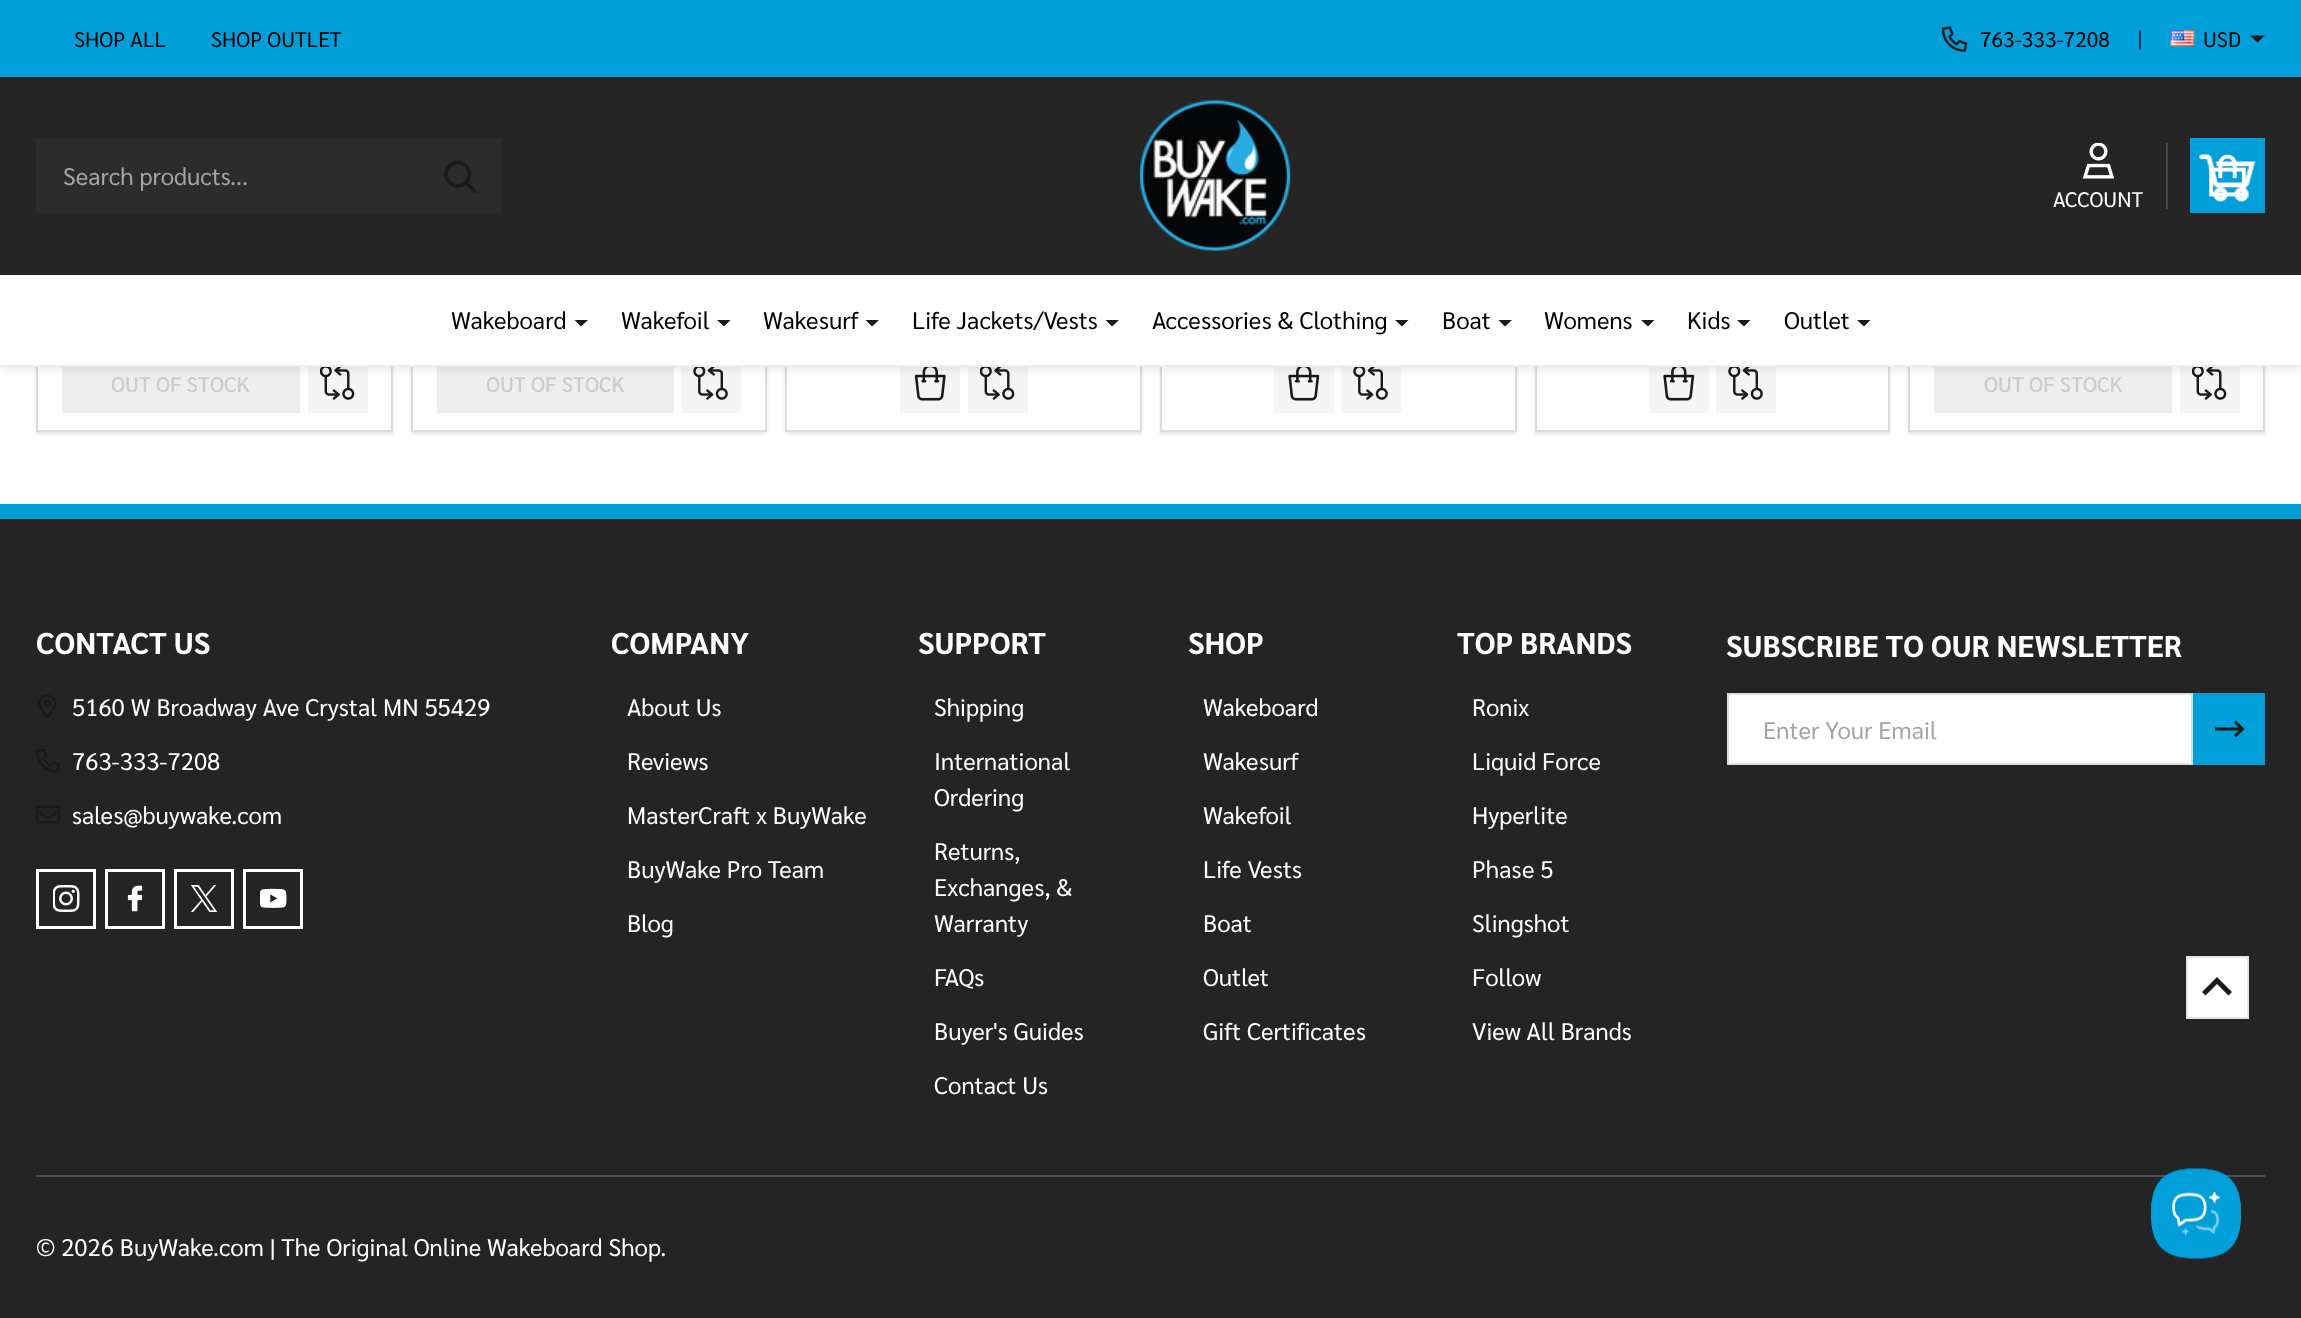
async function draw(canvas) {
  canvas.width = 2301;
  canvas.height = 1318;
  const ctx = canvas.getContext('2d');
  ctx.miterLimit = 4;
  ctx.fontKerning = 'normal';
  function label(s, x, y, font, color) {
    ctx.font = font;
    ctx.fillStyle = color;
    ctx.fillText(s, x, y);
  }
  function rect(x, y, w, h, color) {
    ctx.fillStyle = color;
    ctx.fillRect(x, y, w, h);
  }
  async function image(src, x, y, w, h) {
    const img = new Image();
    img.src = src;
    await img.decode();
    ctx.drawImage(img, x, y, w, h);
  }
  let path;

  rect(0, 0, 2301, 1318, '#fff');
  ctx.save();
  path = new Path2D('M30 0H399V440H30ZM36-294H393V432H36Z');
  ctx.clip(path, 'evenodd');
  ctx.fillStyle = '#0000001a';
  ctx.filter = 'blur(1.5px)';
  ctx.beginPath();
  ctx.rect(36, -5, 357, 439);
  ctx.fill();
  ctx.filter = 'none';
  ctx.restore();
  ctx.strokeStyle = '#ddd';
  ctx.lineWidth = 2;
  ctx.strokeRect(37, -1, 355, 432);
  rect(62, 367, 238, 46, '#eee');
  rect(308, 367, 60, 46, '#f5f5f5');
  await image('assets/img8.png', 320, 367, 35, 33);
  ctx.fillStyle = '#0000001a';
  ctx.filter = 'blur(1.5px)';
  ctx.beginPath();
  ctx.rect(411, -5, 356, 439);
  ctx.fill();
  ctx.filter = 'none';
  rect(413, 367, 352, 63, '#fff');
  ctx.strokeRect(412, -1, 354, 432);
  rect(437, 367, 237, 46, '#eee');
  rect(681, 367, 60, 46, '#f5f5f5');
  await image('assets/img9.png', 693, 367, 35, 33);
  ctx.fillStyle = '#0000001a';
  ctx.filter = 'blur(1.5px)';
  ctx.beginPath();
  ctx.rect(785, -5, 357, 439);
  ctx.fill();
  ctx.filter = 'none';
  rect(787, 367, 353, 63, '#fff');
  ctx.strokeRect(786, -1, 355, 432);
  rect(900, 367, 60, 46, '#f5f5f5');
  await image('assets/img10.png', 914, 367, 32, 34);
  rect(968, 367, 60, 46, '#f5f5f5');
  await image('assets/img8.png', 980, 367, 35, 33);
  ctx.fillStyle = '#0000001a';
  ctx.filter = 'blur(1.5px)';
  ctx.beginPath();
  ctx.rect(1160, -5, 357, 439);
  ctx.fill();
  ctx.filter = 'none';
  rect(1162, 367, 353, 63, '#fff');
  ctx.strokeRect(1161, -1, 355, 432);
  rect(1274, 367, 60, 46, '#f5f5f5');
  await image('assets/img11.png', 1288, 367, 32, 34);
  rect(1341, 367, 60, 46, '#f5f5f5');
  await image('assets/img9.png', 1353, 367, 35, 33);
  ctx.save();
  path = new Path2D('M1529 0H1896V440H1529ZM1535-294H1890V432H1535Z');
  ctx.clip(path, 'evenodd');
  ctx.fillStyle = '#0000001a';
  ctx.filter = 'blur(1.5px)';
  ctx.beginPath();
  ctx.rect(1535, -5, 355, 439);
  ctx.fill();
  ctx.filter = 'none';
  ctx.restore();
  ctx.strokeRect(1536, -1, 353, 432);
  rect(1649, 367, 60, 46, '#f5f5f5');
  await image('assets/img11.png', 1663, 367, 32, 34);
  rect(1716, 367, 60, 46, '#f5f5f5');
  await image('assets/img9.png', 1728, 367, 35, 33);
  ctx.save();
  path = new Path2D('M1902 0H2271V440H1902ZM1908-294H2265V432H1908Z');
  ctx.clip(path, 'evenodd');
  ctx.fillStyle = '#0000001a';
  ctx.filter = 'blur(1.5px)';
  ctx.beginPath();
  ctx.rect(1908, -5, 357, 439);
  ctx.fill();
  ctx.filter = 'none';
  ctx.restore();
  ctx.strokeRect(1909, -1, 355, 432);
  rect(1934, 367, 238, 46, '#eee');
  rect(2180, 367, 60, 46, '#f5f5f5');
  await image('assets/img8.png', 2192, 367, 35, 33);
  ctx.fillStyle = '#0000001a';
  ctx.filter = 'blur(4px)';
  ctx.beginPath();
  ctx.rect(0, 3, 2301, 366);
  ctx.fill();
  ctx.filter = 'none';
  rect(0, 77, 2301, 198, '#252525');
  rect(0, 0, 2301, 77, '#009fda');
  label('SHOP ALL', 74, 47, '21px Sarabun', '#000');
  label('SHOP OUTLET', 211, 47, '21px Sarabun', '#000');
  await image('assets/img1.png', 1941, 26, 27, 26);
  label('763-333-7208', 1980, 47, '21px Sarabun', '#000');
  rect(2139, 30, 2, 20, '#004057');
  await image('assets/img2.png', 2170, 30, 25, 17);
  label('USD', 2203, 47, '21px Sarabun', '#000');
  ctx.fillStyle = '#1a1a1a';
  path = new Path2D('M2250 35.5L2257.5 42.5L2265 35.5Z');
  ctx.fill(path);
  rect(36, 138, 465, 75, '#2c2c2c');
  label('Search products...', 63, 185, '24px Sarabun', '#a5a5a5');
  await image('assets/img3.png', 444, 161, 33, 32);
  await image('assets/img4.png', 1140, 100, 151, 151);
  rect(2166, 143, 2, 66, '#464646');
  await image('assets/img5.png', 2082, 143, 33, 36);
  label('ACCOUNT', 2053, 207, '21px Sarabun', '#fff');
  rect(2190, 138, 75, 75, '#009fda');
  await image('assets/img6.png', 2199, 154, 57, 48);
  await image('assets/img7.png', 2209, 154, 37, 43);
  rect(0, 275, 2301, 90, '#fff');
  rect(0, 365, 2301, 2, '#eee');
  label('Wakeboard', 451, 329, '24px Sarabun', '#000');
  ctx.fillStyle = '#1a1a1a';
  path = new Path2D('M574.5 320L581 326.5L588 320Z');
  ctx.fill(path);
  label('Wakefoil', 621, 329, '24px Sarabun', '#000');
  ctx.fillStyle = '#1a1a1a';
  path = new Path2D('M717 320L724 326.5L730.5 320Z');
  ctx.fill(path);
  label('Wakesurf', 763, 329, '24px Sarabun', '#000');
  ctx.fillStyle = '#1a1a1a';
  path = new Path2D('M865.5 320L872 326.5L879 320Z');
  ctx.fill(path);
  label('Life Jackets/Vests', 912, 329, '24px Sarabun', '#000');
  ctx.fillStyle = '#1a1a1a';
  path = new Path2D('M1105.5 320L1112 326.5L1119 320Z');
  ctx.fill(path);
  label('Accessories & Clothing', 1152, 329, '24px Sarabun', '#000');
  ctx.fillStyle = '#1a1a1a';
  path = new Path2D('M1395 320L1402 326.5L1408.5 320Z');
  ctx.fill(path);
  label('Boat', 1442, 329, '24px Sarabun', '#000');
  ctx.fillStyle = '#1a1a1a';
  path = new Path2D('M1498.5 320L1505 326.5L1512 320Z');
  ctx.fill(path);
  label('Womens', 1544, 329, '24px Sarabun', '#000');
  ctx.fillStyle = '#1a1a1a';
  path = new Path2D('M1641 320L1648 326.5L1654.5 320Z');
  ctx.fill(path);
  label('Kids', 1687, 329, '24px Sarabun', '#000');
  ctx.fillStyle = '#1a1a1a';
  path = new Path2D('M1737 320L1744 326.5L1750.5 320Z');
  ctx.fill(path);
  label('Outlet', 1784, 329, '24px Sarabun', '#000');
  ctx.fillStyle = '#1a1a1a';
  path = new Path2D('M1857 320L1864 326.5L1870.5 320Z');
  ctx.fill(path);
  label('OUT OF STOCK', 111, 392, '500 21px Sarabun', '#ccc');
  label('OUT OF STOCK', 486, 392, '500 21px Sarabun', '#ccc');
  label('OUT OF STOCK', 1984, 392, '500 21px Sarabun', '#ccc');
  rect(0, 519, 2301, 799, '#242424');
  rect(0, 504, 2301, 15, '#009fda');
  label('CONTACT US', 36, 654, 'bold 30px Sarabun', '#fff');
  await image('assets/img12.png', 38, 695, 18, 23);
  label('5160 W Broadway Ave Crystal MN 55429', 72, 716, '24px Sarabun', '#fff');
  await image('assets/img13.png', 36, 749, 24, 24);
  label('763-333-7208', 72, 770, '24px Sarabun', '#fff');
  await image('assets/img14.png', 36, 805, 24, 19);
  label('sales@buywake.com', 72, 824, '24px Sarabun', '#fff');
  ctx.strokeStyle = '#fff';
  ctx.lineWidth = 3;
  ctx.strokeRect(37.5, 870.5, 57, 57);
  await image('assets/img15.png', 53, 885, 27, 27);
  ctx.strokeRect(106.5, 870.5, 57, 57);
  await image('assets/img16.png', 127, 885, 16, 27);
  ctx.strokeRect(175.5, 870.5, 57, 57);
  await image('assets/img17.png', 191, 885, 27, 27);
  ctx.strokeRect(244.5, 870.5, 57, 57);
  await image('assets/img18.png', 260, 888, 27, 20);
  label('COMPANY', 611, 654, 'bold 30px Sarabun', '#fff');
  label('About Us', 627, 716, '24px Sarabun', '#fff');
  label('Reviews', 627, 770, '24px Sarabun', '#fff');
  label('MasterCraft x BuyWake', 627, 824, '24px Sarabun', '#fff');
  label('BuyWake Pro Team', 627, 878, '24px Sarabun', '#fff');
  label('Blog', 627, 932, '24px Sarabun', '#fff');
  label('SUPPORT', 918, 654, 'bold 30px Sarabun', '#fff');
  label('Shipping', 934, 716, '24px Sarabun', '#fff');
  label('International', 934, 770, '24px Sarabun', '#fff');
  label('Ordering', 934, 806, '24px Sarabun', '#fff');
  label('Returns,', 934, 860, '24px Sarabun', '#fff');
  label('Exchanges, &', 934, 896, '24px Sarabun', '#fff');
  label('Warranty', 934, 932, '24px Sarabun', '#fff');
  label('FAQs', 934, 986, '24px Sarabun', '#fff');
  label('Buyer\'s Guides', 934, 1040, '24px Sarabun', '#fff');
  label('Contact Us', 934, 1094, '24px Sarabun', '#fff');
  label('SHOP', 1188, 654, 'bold 30px Sarabun', '#fff');
  label('Wakeboard', 1203, 716, '24px Sarabun', '#fff');
  label('Wakesurf', 1203, 770, '24px Sarabun', '#fff');
  label('Wakefoil', 1203, 824, '24px Sarabun', '#fff');
  label('Life Vests', 1203, 878, '24px Sarabun', '#fff');
  label('Boat', 1203, 932, '24px Sarabun', '#fff');
  label('Outlet', 1203, 986, '24px Sarabun', '#fff');
  label('Gift Certificates', 1203, 1040, '24px Sarabun', '#fff');
  label('TOP BRANDS', 1457, 654, 'bold 30px Sarabun', '#fff');
  label('Ronix', 1472, 716, '24px Sarabun', '#fff');
  label('Liquid Force', 1472, 770, '24px Sarabun', '#fff');
  label('Hyperlite', 1472, 824, '24px Sarabun', '#fff');
  label('Phase 5', 1472, 878, '24px Sarabun', '#fff');
  label('Slingshot', 1472, 932, '24px Sarabun', '#fff');
  label('Follow', 1472, 986, '24px Sarabun', '#fff');
  label('View All Brands', 1472, 1040, '24px Sarabun', '#fff');
  label('SUBSCRIBE TO OUR NEWSLETTER', 1726, 657, 'bold 30px Sarabun', '#fff');
  ctx.beginPath();
  ctx.rect(1728, 694, 464, 70);
  ctx.fill();
  ctx.strokeStyle = '#ddd';
  ctx.lineWidth = 2;
  ctx.stroke();
  label('Enter Your Email', 1763, 739, '24px Sarabun', '#a5a5a5');
  rect(2193, 693, 72, 72, '#009fda');
  ctx.fillStyle = '#1a1a1a';
  path = new Path2D('M2215 730.5H2238.5L2234 735L2236 737.5L2244.5 729L2236 720.5L2234 722.5L2238.5 727.5H2215Z');
  ctx.fill(path);
  rect(36, 1175, 2229, 2, '#505050');
  label('© 2026 BuyWake.com | The Original Online Wakeboard Shop.', 36, 1256, '24px Sarabun', '#fff');
  ctx.beginPath();
  ctx.rect(2187, 957, 61, 61);
  ctx.fill();
  ctx.strokeStyle = '#e6e6e6';
  ctx.stroke();
  ctx.fillStyle = '#1a1a1a';
  path = new Path2D('M2205.5 995.5L2217 984L2228.5 995.5L2232 992L2217 977L2202 992Z');
  ctx.fill(path);
  await image('assets/img19.png', 2151, 1168, 90, 91);
}

draw(document.querySelector('canvas'));
